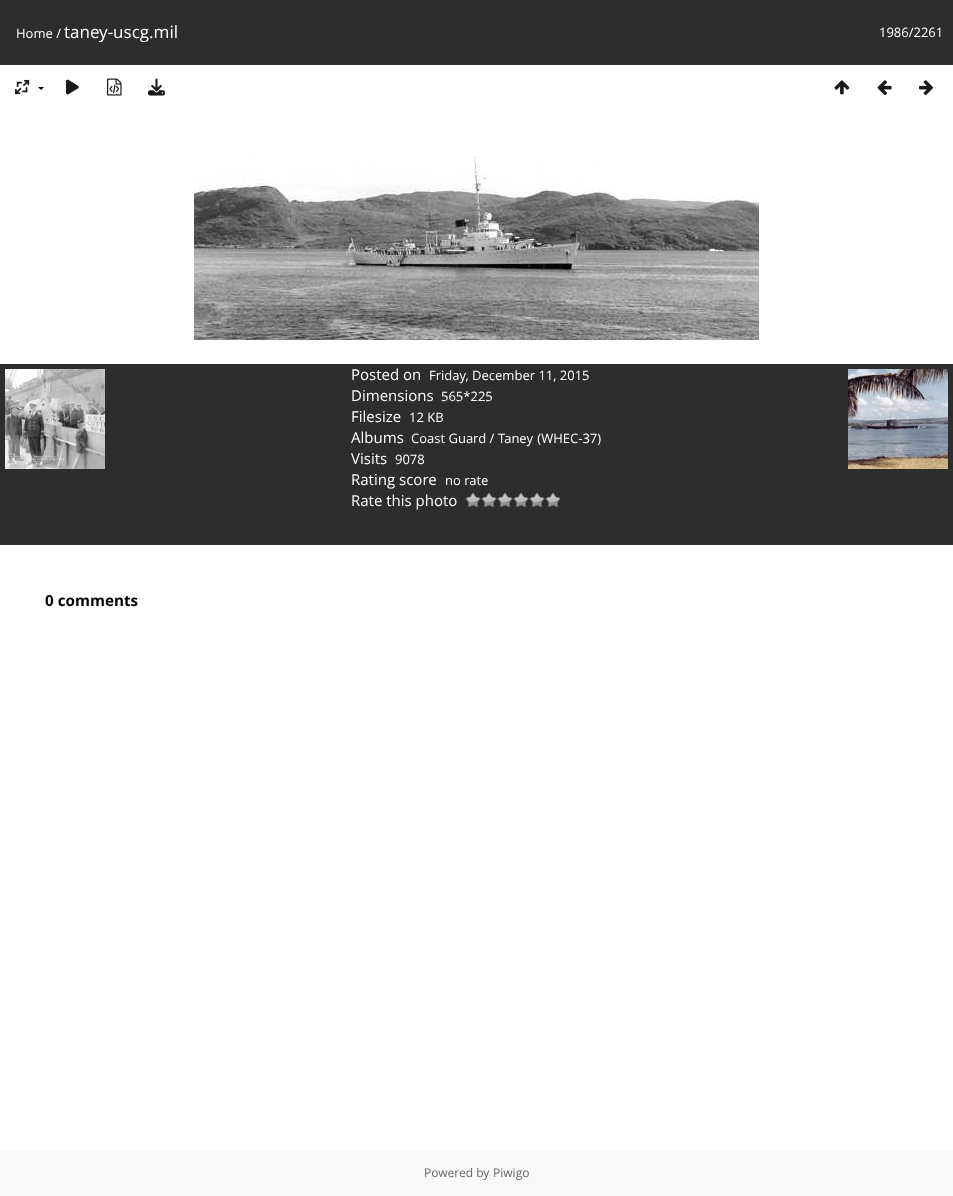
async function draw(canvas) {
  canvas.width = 953;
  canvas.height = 1196;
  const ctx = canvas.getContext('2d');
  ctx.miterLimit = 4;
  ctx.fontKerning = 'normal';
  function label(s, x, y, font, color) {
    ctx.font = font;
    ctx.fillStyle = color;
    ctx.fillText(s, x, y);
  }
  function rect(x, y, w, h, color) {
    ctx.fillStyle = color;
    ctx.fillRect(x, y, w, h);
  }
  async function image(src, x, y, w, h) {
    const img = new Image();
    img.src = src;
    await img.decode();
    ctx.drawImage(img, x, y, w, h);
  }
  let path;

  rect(0, 0, 953, 1196, '#fff');
  rect(0, 0, 953, 65, '#2d2d2d');
  label('Home /', 16, 38, '13px Open Sans', '#fff');
  label('taney-uscg.mil', 64, 38, '17px Open Sans', '#fff');
  label('1986/2261', 879, 37, '13px Open Sans', '#fff');
  await image('assets/img1.png', 15, 79, 15, 16);
  ctx.fillStyle = '#000';
  path = new Path2D('M38 87H44L41 90Z');
  ctx.fill(path);
  await image('assets/img2.png', 66, 79, 13, 16);
  await image('assets/img3.png', 107, 78, 15, 18);
  await image('assets/img4.png', 148, 78, 17, 18);
  await image('assets/img5.png', 834, 80, 16, 15);
  await image('assets/img6.png', 877, 80, 15, 15);
  await image('assets/img7.png', 919, 80, 14, 15);
  await image('assets/img8.png', 194, 156, 565, 184);
  rect(0, 364, 953, 181, '#2d2d2d');
  label('Posted on', 351, 380, '15px Open Sans', '#fff');
  label('Friday, December 11, 2015', 429, 380, '13px Open Sans', '#fff');
  label('Dimensions', 351, 401, '15px Open Sans', '#fff');
  label('565*225', 441, 401, '13px Open Sans', '#fff');
  label('Filesize', 351, 422, '15px Open Sans', '#fff');
  label('12 KB', 409, 422, '13px Open Sans', '#fff');
  label('Albums', 351, 443, '15px Open Sans', '#fff');
  label('Coast Guard /', 411, 443, '13px Open Sans', '#fff');
  ctx.wordSpacing = '1px';
  label('Taney (WHEC-37)', 498, 443, '13px Open Sans', '#fff');
  ctx.wordSpacing = '0px';
  label('Visits', 351, 464, '15px Open Sans', '#fff');
  label('9078', 395, 464, '13px Open Sans', '#fff');
  label('Rating score', 351, 485, '15px Open Sans', '#fff');
  label('no rate', 445, 485, '13px Open Sans', '#fff');
  label('Rate this photo', 351, 506, '15px Open Sans', '#fff');
  await image('assets/img9.png', 465, 493, 16, 14);
  await image('assets/img9.png', 481, 493, 16, 14);
  await image('assets/img9.png', 497, 493, 16, 14);
  await image('assets/img9.png', 513, 493, 16, 14);
  await image('assets/img9.png', 529, 493, 16, 14);
  await image('assets/img9.png', 545, 493, 16, 14);
  await image('assets/img10.png', 5, 369, 100, 100);
  await image('assets/img11.png', 848, 369, 100, 100);
  label('0 comments', 45, 606, 'bold 15.25px Open Sans', '#000');
  rect(0, 1149, 953, 47, '#f9f9f9');
  label('Powered by', 424, 1177, '12px Open Sans', '#666');
  label('Piwigo', 493, 1177, '12px Open Sans', '#666');
}

draw(document.querySelector('canvas'));
